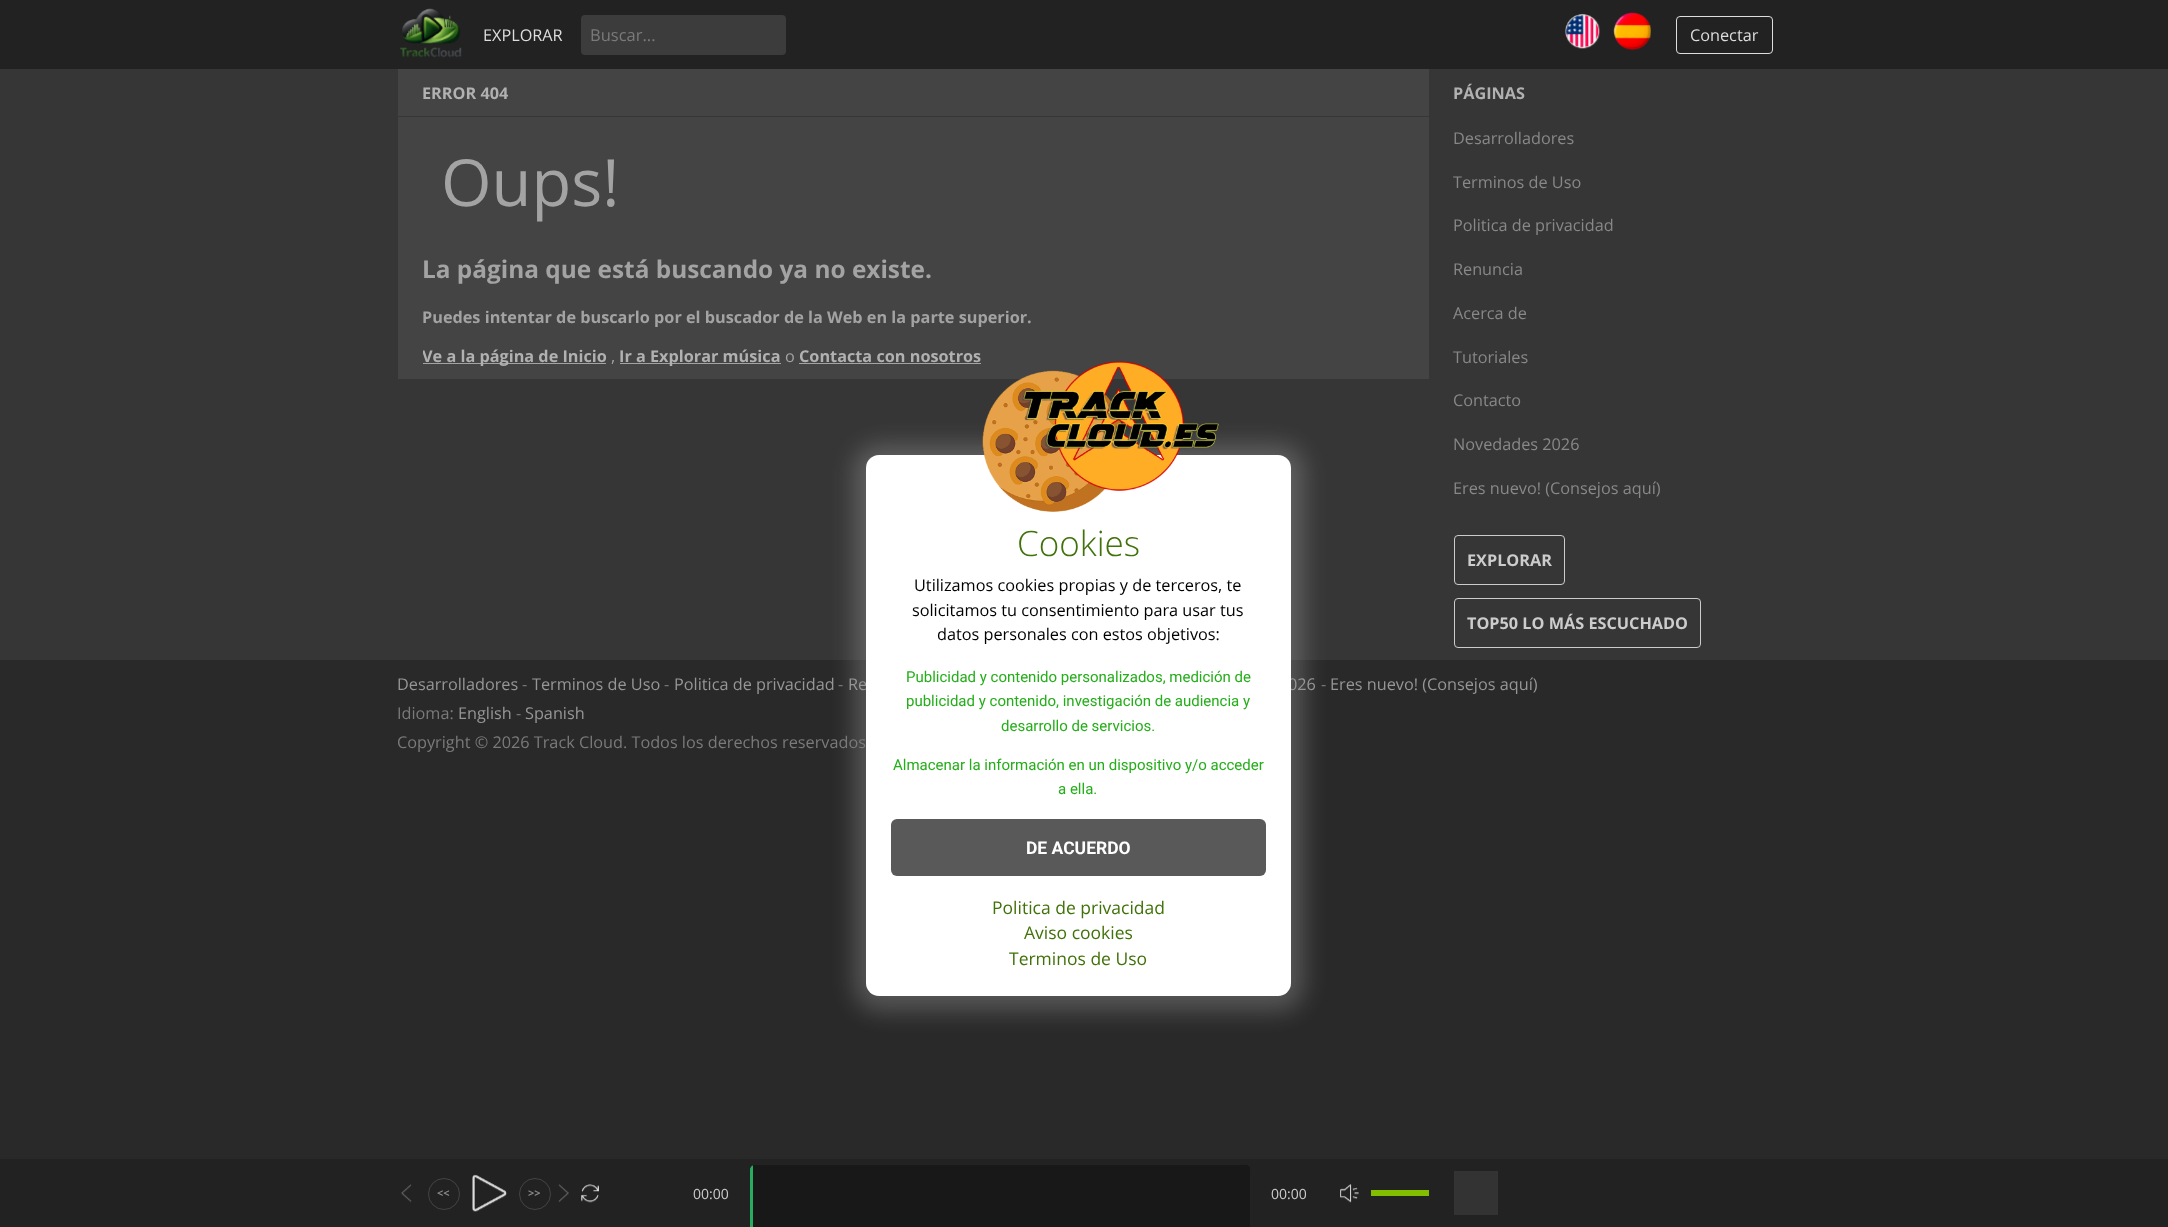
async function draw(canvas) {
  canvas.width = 2168;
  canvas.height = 1227;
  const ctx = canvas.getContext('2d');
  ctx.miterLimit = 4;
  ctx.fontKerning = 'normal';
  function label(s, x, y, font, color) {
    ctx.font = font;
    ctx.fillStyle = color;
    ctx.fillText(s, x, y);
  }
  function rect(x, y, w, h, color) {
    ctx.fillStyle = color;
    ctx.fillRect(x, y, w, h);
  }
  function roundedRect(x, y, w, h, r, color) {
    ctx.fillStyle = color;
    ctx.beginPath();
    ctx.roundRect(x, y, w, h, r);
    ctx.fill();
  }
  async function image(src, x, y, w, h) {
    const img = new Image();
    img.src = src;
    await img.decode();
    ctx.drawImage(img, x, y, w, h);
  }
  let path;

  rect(0, 0, 2168, 1227, '#292929');
  rect(0, 0, 2168, 69, '#222');
  await image('assets/img1.png', 400, 8, 62, 50);
  label('EXPLORAR', 483, 41, '16.25px Open Sans', '#ddd');
  roundedRect(581, 15, 205, 40, 4, '#3c3c3c');
  label('Buscar...', 590, 41, '16.5px Open Sans', '#7a7a7a');
  await image('assets/img2.png', 1565, 13, 35, 36);
  await image('assets/img3.png', 1613, 12, 38, 39);
  ctx.beginPath();
  ctx.roundRect(1676.5, 16.5, 96, 37, 3.5);
  ctx.strokeStyle = '#ddd';
  ctx.stroke();
  label('Conectar', 1690, 41, '16.25px Open Sans', '#ddd');
  rect(0, 69, 2168, 591, '#363636');
  rect(398, 69, 1031, 310, '#444');
  rect(398, 116, 1031, 1, '#363636');
  label('ERROR 404', 422, 99, 'bold 16.25px Open Sans', '#b1b1b1');
  label('Oups!', 441, 206, '65px Open Sans', '#a3a3a3');
  label('La página que está buscando ya no existe.', 422, 278, 'bold 24.4px Open Sans', '#a3a3a3');
  label('Puedes intentar de buscarlo por el buscador de la Web en la parte superior.', 422, 323, 'bold 16.25px Open Sans', '#a3a3a3');
  rect(423, 363, 183, 1, '#a3a3a3');
  ctx.save();
  ctx.beginPath();
  ctx.rect(423, 130, 981, 236);
  ctx.clip();
  label('Ve a la página de Inicio', 422, 362, 'bold 16.25px Open Sans', '#b1b1b1');
  ctx.restore();
  label(',', 611, 362, '16.25px Open Sans', '#a3a3a3');
  rect(620, 363, 161, 1, '#a3a3a3');
  label('Ir a Explorar música', 619, 362, 'bold 16.25px Open Sans', '#b1b1b1');
  label('o', 785, 362, '16.25px Open Sans', '#a3a3a3');
  label('Contacta con nosotros', 799, 362, 'bold 16.25px Open Sans', '#b1b1b1');
  rect(799, 363, 182, 1, '#a3a3a3');
  label('PÁGINAS', 1453, 99, 'bold 16.25px Open Sans', '#b1b1b1');
  label('Desarrolladores', 1453, 144, '16.25px Open Sans', '#888');
  label('Terminos de Uso', 1453, 188, '16.25px Open Sans', '#888');
  label('Politica de privacidad', 1453, 231, '16.25px Open Sans', '#888');
  label('Renuncia', 1453, 275, '16.25px Open Sans', '#888');
  label('Acerca de', 1453, 319, '16.25px Open Sans', '#888');
  label('Tutoriales', 1453, 363, '16.25px Open Sans', '#888');
  label('Contacto', 1453, 406, '16.25px Open Sans', '#888');
  label('Novedades 2026', 1453, 450, '16.25px Open Sans', '#888');
  label('Eres nuevo! (Consejos aquí)', 1453, 494, '16.25px Open Sans', '#888');
  ctx.beginPath();
  ctx.roundRect(1454.5, 535.5, 110, 49, 3.5);
  ctx.strokeStyle = '#ccc';
  ctx.stroke();
  label('EXPLORAR', 1467, 566, 'bold 16.25px Open Sans', '#ccc');
  ctx.beginPath();
  ctx.roundRect(1454.5, 598.5, 246, 49, 3.5);
  ctx.stroke();
  label('TOP50 LO MÁS ESCUCHADO', 1467, 629, 'bold 16.25px Open Sans', '#ccc');
  ctx.fillStyle = '#dedede40';
  ctx.filter = 'blur(12.5px)';
  ctx.beginPath();
  ctx.roundRect(854, 445, 450, 566, 25);
  ctx.fill();
  ctx.filter = 'none';
  label('Re', 848, 690, '16.25px Open Sans', '#969696');
  label('026', 1288, 690, '16.25px Open Sans', '#969696');
  roundedRect(866, 455, 425, 541, 13, '#fff');
  await image('assets/img4.png', 982, 361, 237, 151);
  label('Cookies', 1017, 556, '300 35px Open Sans', '#407209');
  label('Utilizamos cookies propias y de terceros, te', 914, 591, '16.25px Open Sans', '#000');
  label('solicitamos tu consentimiento para usar tus', 912, 616, '16.25px Open Sans', '#000');
  label('datos personales con estos objetivos:', 937, 640, '16.25px Open Sans', '#000');
  label('Publicidad y contenido personalizados, medición de', 906, 682, '15px Roboto', '#24ae19');
  label('publicidad y contenido, investigación de audiencia y', 906, 706, '15px Roboto', '#24ae19');
  label('desarrollo de servicios.', 1001, 731, '15px Roboto', '#24ae19');
  label('Almacenar la información en un dispositivo y/o acceder', 893, 770, '15px Roboto', '#24ae19');
  label('a ella.', 1058, 794, '15px Roboto', '#24ae19');
  roundedRect(891, 819, 375, 57, 6, '#595959');
  label('DE ACUERDO', 1026, 854, 'bold 17.5px Roboto', '#fff');
  label('Politica de privacidad', 992, 914, '17.5px Open Sans', '#407209');
  label('Aviso cookies', 1024, 939, '17.5px Open Sans', '#407209');
  label('Terminos de Uso', 1009, 965, '17.5px Open Sans', '#407209');
  label('Desarrolladores', 397, 690, '16.25px Open Sans', '#969696');
  label('-', 522, 690, '16.25px Open Sans', '#7a7a7a');
  label('Terminos de Uso', 532, 690, '16.25px Open Sans', '#969696');
  label('-', 664, 690, '16.25px Open Sans', '#7a7a7a');
  label('Politica de privacidad', 674, 690, '16.25px Open Sans', '#969696');
  label('-', 838, 690, '16.25px Open Sans', '#7a7a7a');
  label('-', 1321, 690, '16.25px Open Sans', '#7a7a7a');
  label('Eres nuevo! (Consejos aquí)', 1330, 690, '16.25px Open Sans', '#969696');
  label('Idioma:', 397, 719, '16.25px Open Sans', '#7a7a7a');
  label('English', 458, 719, '16.25px Open Sans', '#969696');
  label('-', 516, 719, '16.25px Open Sans', '#7a7a7a');
  label('Spanish', 525, 719, '16.25px Open Sans', '#969696');
  label('Copyright © 2026 Track Cloud. Todos los derechos reservados', 397, 748, '16.25px Open Sans', '#7a7a7a');
  rect(0, 1159, 2168, 68, '#222');
  await image('assets/img5.png', 401, 1184, 11, 19);
  ctx.beginPath();
  ctx.arc(444, 1194, 15.5, 0, 2 * Math.PI);
  ctx.strokeStyle = '#444';
  ctx.stroke();
  label('<<', 437, 1197, 'bold 11px Open Sans', '#888');
  await image('assets/img6.png', 472, 1174, 35, 38);
  ctx.beginPath();
  ctx.arc(535, 1194, 15.5, 0, 2 * Math.PI);
  ctx.stroke();
  label('>>', 528, 1197, 'bold 11px Open Sans', '#888');
  await image('assets/img7.png', 558, 1184, 11, 19);
  await image('assets/img8.png', 581, 1184, 18, 19);
  label('00:00', 693, 1199, '14px Open Sans', '#ccc');
  ctx.fillStyle = '#000';
  path = new Path2D('M755 1165H1245C1248 1165 1250 1167 1250 1170V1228H750V1170C750 1167 752 1165 755 1165Z');
  ctx.fill(path);
  ctx.fillStyle = '#333333cc';
  path = new Path2D('M755 1165H1245C1248 1165 1250 1167 1250 1170V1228H750V1170C750 1167 752 1165 755 1165Z');
  ctx.fill(path);
  ctx.fillStyle = '#00000066';
  path = new Path2D('M755 1165H1245C1248 1165 1250 1167 1250 1170V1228H750V1170C750 1167 752 1165 755 1165Z');
  ctx.fill(path);
  ctx.save();
  ctx.beginPath();
  ctx.roundRect(750, 1165, 500, 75, 5);
  ctx.clip();
  rect(750, 1165, 3, 62, '#2aa85f');
  rect(750, 1165, 3, 62, '#27ae60cc');
  ctx.restore();
  label('00:00', 1271, 1199, '14px Open Sans', '#ccc');
  await image('assets/img9.png', 1340, 1184, 19, 19);
  rect(1371, 1190, 58, 6, '#84bd00');
  rect(1454, 1171, 44, 44, '#333');
}

draw(document.querySelector('canvas'));
